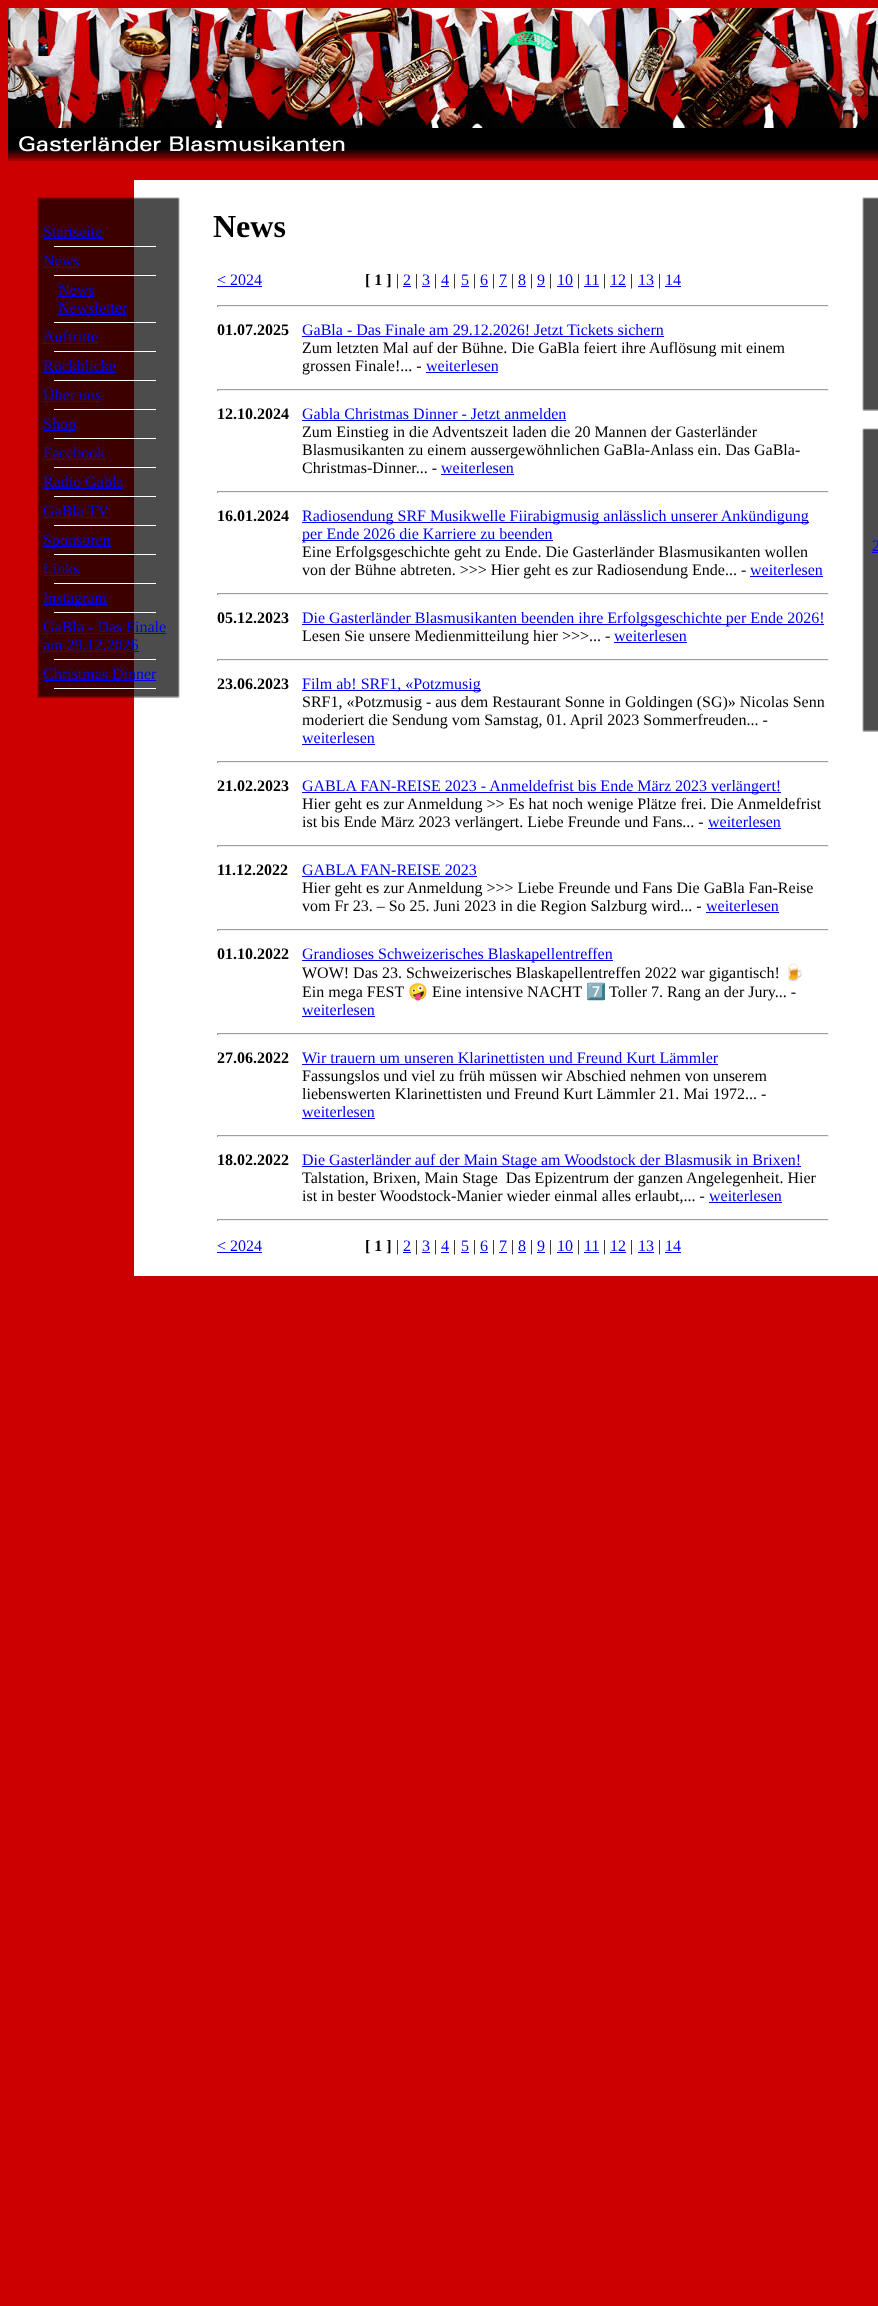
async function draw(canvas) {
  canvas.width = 878;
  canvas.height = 2306;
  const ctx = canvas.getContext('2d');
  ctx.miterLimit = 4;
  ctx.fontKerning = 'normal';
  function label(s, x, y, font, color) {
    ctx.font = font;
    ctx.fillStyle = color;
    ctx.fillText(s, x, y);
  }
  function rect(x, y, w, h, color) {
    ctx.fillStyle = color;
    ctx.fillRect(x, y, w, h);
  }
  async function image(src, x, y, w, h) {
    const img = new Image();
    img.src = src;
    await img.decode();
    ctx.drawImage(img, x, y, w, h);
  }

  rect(0, 0, 878, 2306, '#c00');
  await image('assets/img1.png', 8, 8, 870, 120);
  await image('assets/img2.png', 8, 128, 870, 33);
  await image('assets/img3.png', 19, 136, 326, 16);
  rect(134, 180, 744, 1096, '#fff');
  await image('assets/img4.png', 37, 197, 6, 26);
  await image('assets/img5.png', 134, 180, 40, 43);
  await image('assets/img6.png', 43, 180, 91, 43);
  await image('assets/img7.png', 174, 197, 6, 26);
  await image('assets/img8.png', 37, 223, 6, 18);
  await image('assets/img9.png', 43, 223, 131, 18);
  label('Startseite', 43, 237, '16px Liberation Serif', '#00e');
  rect(43, 238, 60, 1, '#00e');
  await image('assets/img10.png', 174, 223, 6, 18);
  await image('assets/img11.png', 37, 241, 6, 11);
  await image('assets/img12.png', 43, 241, 131, 11);
  rect(54, 246, 102, 1, '#fff');
  await image('assets/img13.png', 174, 241, 6, 11);
  await image('assets/img8.png', 37, 252, 6, 18);
  await image('assets/img9.png', 43, 252, 131, 18);
  label('News', 43, 266, '16px Liberation Serif', '#00e');
  rect(43, 267, 36, 1, '#00e');
  await image('assets/img10.png', 174, 252, 6, 18);
  await image('assets/img11.png', 37, 270, 6, 11);
  await image('assets/img12.png', 43, 270, 131, 11);
  rect(54, 275, 102, 1, '#fff');
  await image('assets/img13.png', 174, 270, 6, 11);
  await image('assets/img14.png', 37, 281, 6, 36);
  await image('assets/img15.png', 43, 281, 131, 36);
  label('News', 58, 295, '16px Liberation Serif', '#00e');
  rect(58, 296, 36, 1, '#00e');
  label('Newsletter', 58, 313, '16px Liberation Serif', '#00e');
  rect(58, 314, 69, 1, '#00e');
  await image('assets/img16.png', 174, 281, 6, 36);
  await image('assets/img11.png', 37, 317, 6, 11);
  await image('assets/img12.png', 43, 317, 131, 11);
  rect(54, 322, 102, 1, '#fff');
  await image('assets/img13.png', 174, 317, 6, 11);
  await image('assets/img8.png', 37, 328, 6, 18);
  await image('assets/img9.png', 43, 328, 131, 18);
  label('Auftritte', 43, 342, '16px Liberation Serif', '#00e');
  rect(43, 343, 55, 1, '#00e');
  await image('assets/img10.png', 174, 328, 6, 18);
  await image('assets/img11.png', 37, 346, 6, 11);
  await image('assets/img12.png', 43, 346, 131, 11);
  rect(54, 351, 102, 1, '#fff');
  await image('assets/img13.png', 174, 346, 6, 11);
  await image('assets/img8.png', 37, 357, 6, 18);
  await image('assets/img9.png', 43, 357, 131, 18);
  label('Rückblicke', 43, 371, '16px Liberation Serif', '#00e');
  rect(43, 372, 73, 1, '#00e');
  await image('assets/img10.png', 174, 357, 6, 18);
  await image('assets/img11.png', 37, 375, 6, 11);
  await image('assets/img12.png', 43, 375, 131, 11);
  rect(54, 380, 102, 1, '#fff');
  await image('assets/img13.png', 174, 375, 6, 11);
  await image('assets/img8.png', 37, 386, 6, 18);
  await image('assets/img9.png', 43, 386, 131, 18);
  label('Über uns', 43, 400, '16px Liberation Serif', '#00e');
  rect(43, 401, 58, 1, '#00e');
  await image('assets/img10.png', 174, 386, 6, 18);
  await image('assets/img11.png', 37, 404, 6, 11);
  await image('assets/img12.png', 43, 404, 131, 11);
  rect(54, 409, 102, 1, '#fff');
  await image('assets/img13.png', 174, 404, 6, 11);
  await image('assets/img8.png', 37, 415, 6, 18);
  await image('assets/img9.png', 43, 415, 131, 18);
  rect(43, 430, 33, 1, '#00e');
  label('Shop', 43, 429, '16px Liberation Serif', '#00e');
  await image('assets/img10.png', 174, 415, 6, 18);
  await image('assets/img11.png', 37, 433, 6, 11);
  await image('assets/img12.png', 43, 433, 131, 11);
  rect(54, 438, 102, 1, '#fff');
  await image('assets/img13.png', 174, 433, 6, 11);
  await image('assets/img8.png', 37, 444, 6, 18);
  await image('assets/img9.png', 43, 444, 131, 18);
  label('Facebook', 43, 458, '16px Liberation Serif', '#00e');
  rect(43, 459, 62, 1, '#00e');
  await image('assets/img10.png', 174, 444, 6, 18);
  await image('assets/img11.png', 37, 462, 6, 11);
  await image('assets/img12.png', 43, 462, 131, 11);
  rect(54, 467, 102, 1, '#fff');
  await image('assets/img13.png', 174, 462, 6, 11);
  await image('assets/img8.png', 37, 473, 6, 18);
  await image('assets/img9.png', 43, 473, 131, 18);
  label('Radio Gabla', 43, 487, '16px Liberation Serif', '#00e');
  rect(43, 488, 80, 1, '#00e');
  await image('assets/img10.png', 174, 473, 6, 18);
  await image('assets/img11.png', 37, 491, 6, 11);
  await image('assets/img12.png', 43, 491, 131, 11);
  rect(54, 496, 102, 1, '#fff');
  await image('assets/img13.png', 174, 491, 6, 11);
  await image('assets/img8.png', 37, 502, 6, 18);
  await image('assets/img9.png', 43, 502, 131, 18);
  label('GaBla TV', 43, 516, '16px Liberation Serif', '#00e');
  rect(43, 517, 66, 1, '#00e');
  await image('assets/img10.png', 174, 502, 6, 18);
  await image('assets/img11.png', 37, 520, 6, 11);
  await image('assets/img12.png', 43, 520, 131, 11);
  rect(54, 525, 102, 1, '#fff');
  await image('assets/img13.png', 174, 520, 6, 11);
  await image('assets/img8.png', 37, 531, 6, 18);
  await image('assets/img9.png', 43, 531, 131, 18);
  rect(43, 546, 68, 1, '#00e');
  label('Sponsoren', 43, 545, '16px Liberation Serif', '#00e');
  await image('assets/img10.png', 174, 531, 6, 18);
  await image('assets/img11.png', 37, 549, 6, 11);
  await image('assets/img12.png', 43, 549, 131, 11);
  rect(54, 554, 102, 1, '#fff');
  await image('assets/img13.png', 174, 549, 6, 11);
  await image('assets/img8.png', 37, 560, 6, 18);
  await image('assets/img9.png', 43, 560, 131, 18);
  label('Links', 43, 574, '16px Liberation Serif', '#00e');
  rect(43, 575, 36, 1, '#00e');
  await image('assets/img10.png', 174, 560, 6, 18);
  await image('assets/img11.png', 37, 578, 6, 11);
  await image('assets/img12.png', 43, 578, 131, 11);
  rect(54, 583, 102, 1, '#fff');
  await image('assets/img13.png', 174, 578, 6, 11);
  await image('assets/img8.png', 37, 589, 6, 18);
  await image('assets/img9.png', 43, 589, 131, 18);
  rect(43, 604, 64, 1, '#00e');
  label('Instagram', 43, 603, '16px Liberation Serif', '#00e');
  await image('assets/img10.png', 174, 589, 6, 18);
  await image('assets/img11.png', 37, 607, 6, 11);
  await image('assets/img12.png', 43, 607, 131, 11);
  rect(54, 612, 102, 1, '#fff');
  await image('assets/img13.png', 174, 607, 6, 11);
  await image('assets/img14.png', 37, 618, 6, 36);
  await image('assets/img15.png', 43, 618, 131, 36);
  label('GaBla - Das Finale', 43, 632, '16px Liberation Serif', '#00e');
  rect(43, 633, 123, 1, '#00e');
  label('am 29.12.2026', 43, 650, '16px Liberation Serif', '#00e');
  rect(43, 651, 96, 1, '#00e');
  await image('assets/img16.png', 174, 618, 6, 36);
  await image('assets/img11.png', 37, 654, 6, 11);
  await image('assets/img12.png', 43, 654, 131, 11);
  rect(54, 659, 102, 1, '#fff');
  await image('assets/img13.png', 174, 654, 6, 11);
  await image('assets/img8.png', 37, 665, 6, 18);
  await image('assets/img9.png', 43, 665, 131, 18);
  label('Christmas Dinner', 43, 679, '16px Liberation Serif', '#00e');
  rect(43, 680, 113, 1, '#00e');
  await image('assets/img10.png', 174, 665, 6, 18);
  await image('assets/img11.png', 37, 683, 6, 11);
  await image('assets/img12.png', 43, 683, 131, 11);
  rect(54, 688, 102, 1, '#fff');
  await image('assets/img13.png', 174, 683, 6, 11);
  await image('assets/img17.png', 37, 694, 6, 4);
  await image('assets/img18.png', 134, 694, 40, 4);
  await image('assets/img19.png', 43, 694, 91, 4);
  await image('assets/img20.png', 174, 694, 6, 4);
  label('News', 213, 237, 'bold 32px Liberation Serif', '#000');
  label('< 2024', 217, 285, '16px Liberation Serif', '#00e');
  rect(217, 286, 45, 1, '#00e');
  label('[ 1 ]', 365, 285, 'bold 16px Liberation Serif', '#000');
  label('|', 396, 285, '16px Liberation Serif', '#000');
  label('2', 403, 285, '16px Liberation Serif', '#00e');
  rect(403, 286, 8, 1, '#00e');
  label('|', 415, 285, '16px Liberation Serif', '#000');
  label('3', 422, 285, '16px Liberation Serif', '#00e');
  rect(422, 286, 8, 1, '#00e');
  label('|', 434, 285, '16px Liberation Serif', '#000');
  label('4', 441, 285, '16px Liberation Serif', '#00e');
  rect(441, 286, 8, 1, '#00e');
  label('|', 453, 285, '16px Liberation Serif', '#000');
  label('5', 461, 285, '16px Liberation Serif', '#00e');
  rect(461, 286, 8, 1, '#00e');
  label('|', 473, 285, '16px Liberation Serif', '#000');
  label('6', 480, 285, '16px Liberation Serif', '#00e');
  rect(480, 286, 8, 1, '#00e');
  label('|', 492, 285, '16px Liberation Serif', '#000');
  label('7', 499, 285, '16px Liberation Serif', '#00e');
  rect(499, 286, 8, 1, '#00e');
  label('|', 511, 285, '16px Liberation Serif', '#000');
  label('8', 518, 285, '16px Liberation Serif', '#00e');
  rect(518, 286, 8, 1, '#00e');
  label('|', 530, 285, '16px Liberation Serif', '#000');
  label('9', 537, 285, '16px Liberation Serif', '#00e');
  rect(537, 286, 8, 1, '#00e');
  label('|', 549, 285, '16px Liberation Serif', '#000');
  label('10', 557, 285, '16px Liberation Serif', '#00e');
  rect(557, 286, 16, 1, '#00e');
  label('|', 577, 285, '16px Liberation Serif', '#000');
  label('11', 584, 285, '16px Liberation Serif', '#00e');
  rect(584, 286, 15, 1, '#00e');
  label('|', 603, 285, '16px Liberation Serif', '#000');
  label('12', 610, 285, '16px Liberation Serif', '#00e');
  rect(610, 286, 16, 1, '#00e');
  label('|', 630, 285, '16px Liberation Serif', '#000');
  label('13', 638, 285, '16px Liberation Serif', '#00e');
  rect(638, 286, 16, 1, '#00e');
  label('|', 658, 285, '16px Liberation Serif', '#000');
  label('14', 665, 285, '16px Liberation Serif', '#00e');
  rect(665, 286, 16, 1, '#00e');
  rect(217, 305, 612, 1, '#9f9f9f');
  rect(828, 305, 1, 2, '#eee');
  rect(217, 306, 612, 1, '#eee');
  rect(217, 305, 1, 2, '#9f9f9f');
  label('01.07.2025', 217, 335, 'bold 16px Liberation Serif', '#000');
  label('GaBla - Das Finale am 29.12.2026! Jetzt Tickets sichern', 302, 335, '16px Liberation Serif', '#00e');
  rect(302, 336, 362, 1, '#00e');
  label('Zum letzten Mal auf der Bühne. Die GaBla feiert ihre Auflösung mit einem', 302, 353, '16px Liberation Serif', '#000');
  label('grossen Finale!... -', 302, 371, '16px Liberation Serif', '#000');
  label('weiterlesen', 426, 371, '16px Liberation Serif', '#00e');
  rect(426, 372, 72, 1, '#00e');
  rect(217, 389, 612, 1, '#9f9f9f');
  rect(828, 389, 1, 2, '#eee');
  rect(217, 390, 612, 1, '#eee');
  rect(217, 389, 1, 2, '#9f9f9f');
  label('12.10.2024', 217, 419, 'bold 16px Liberation Serif', '#000');
  label('Gabla Christmas Dinner - Jetzt anmelden', 302, 419, '16px Liberation Serif', '#00e');
  rect(302, 420, 264, 1, '#00e');
  label('Zum Einstieg in die Adventszeit laden die 20 Mannen der Gasterländer', 302, 437, '16px Liberation Serif', '#000');
  label('Blasmusikanten zu einem aussergewöhnlichen GaBla-Anlass ein. Das GaBla-', 302, 455, '16px Liberation Serif', '#000');
  label('Christmas-Dinner... -', 302, 473, '16px Liberation Serif', '#000');
  label('weiterlesen', 441, 473, '16px Liberation Serif', '#00e');
  rect(441, 474, 73, 1, '#00e');
  rect(217, 491, 612, 1, '#9f9f9f');
  rect(828, 491, 1, 2, '#eee');
  rect(217, 492, 612, 1, '#eee');
  rect(217, 491, 1, 2, '#9f9f9f');
  label('16.01.2024', 217, 521, 'bold 16px Liberation Serif', '#000');
  rect(302, 522, 507, 1, '#00e');
  label('Radiosendung SRF Musikwelle Fiirabigmusig anlässlich unserer Ankündigung', 302, 521, '16px Liberation Serif', '#00e');
  rect(302, 540, 251, 1, '#00e');
  label('per Ende 2026 die Karriere zu beenden', 302, 539, '16px Liberation Serif', '#00e');
  label('Eine Erfolgsgeschichte geht zu Ende. Die Gasterländer Blasmusikanten wollen', 302, 557, '16px Liberation Serif', '#000');
  label('von der Bühne abtreten. >>> Hier geht es zur Radiosendung Ende... -', 302, 575, '16px Liberation Serif', '#000');
  label('weiterlesen', 750, 575, '16px Liberation Serif', '#00e');
  rect(750, 576, 73, 1, '#00e');
  rect(217, 593, 612, 1, '#9f9f9f');
  rect(828, 593, 1, 2, '#eee');
  rect(217, 594, 612, 1, '#eee');
  rect(217, 593, 1, 2, '#9f9f9f');
  label('05.12.2023', 217, 623, 'bold 16px Liberation Serif', '#000');
  rect(302, 624, 522, 1, '#00e');
  label('Die Gasterländer Blasmusikanten beenden ihre Erfolgsgeschichte per Ende 2026!', 302, 623, '16px Liberation Serif', '#00e');
  label('Lesen Sie unsere Medienmitteilung hier >>>... -', 302, 641, '16px Liberation Serif', '#000');
  label('weiterlesen', 614, 641, '16px Liberation Serif', '#00e');
  rect(614, 642, 73, 1, '#00e');
  rect(217, 659, 612, 1, '#9f9f9f');
  rect(828, 659, 1, 2, '#eee');
  rect(217, 660, 612, 1, '#eee');
  rect(217, 659, 1, 2, '#9f9f9f');
  label('23.06.2023', 217, 689, 'bold 16px Liberation Serif', '#000');
  rect(302, 690, 179, 1, '#00e');
  label('Film ab! SRF1, «Potzmusig', 302, 689, '16px Liberation Serif', '#00e');
  label('SRF1, «Potzmusig - aus dem Restaurant Sonne in Goldingen (SG)» Nicolas Senn', 302, 707, '16px Liberation Serif', '#000');
  label('moderiert die Sendung vom Samstag, 01. April 2023 Sommerfreuden... -', 302, 725, '16px Liberation Serif', '#000');
  label('weiterlesen', 302, 743, '16px Liberation Serif', '#00e');
  rect(302, 744, 73, 1, '#00e');
  rect(217, 761, 612, 1, '#9f9f9f');
  rect(828, 761, 1, 2, '#eee');
  rect(217, 762, 612, 1, '#eee');
  rect(217, 761, 1, 2, '#9f9f9f');
  label('21.02.2023', 217, 791, 'bold 16px Liberation Serif', '#000');
  rect(302, 792, 479, 1, '#00e');
  label('GABLA FAN-REISE 2023 - Anmeldefrist bis Ende März 2023 verlängert!', 302, 791, '16px Liberation Serif', '#00e');
  label('Hier geht es zur Anmeldung >> Es hat noch wenige Plätze frei. Die Anmeldefrist', 302, 809, '16px Liberation Serif', '#000');
  label('ist bis Ende März 2023 verlängert. Liebe Freunde und Fans... -', 302, 827, '16px Liberation Serif', '#000');
  label('weiterlesen', 708, 827, '16px Liberation Serif', '#00e');
  rect(708, 828, 73, 1, '#00e');
  rect(217, 845, 612, 1, '#9f9f9f');
  rect(828, 845, 1, 2, '#eee');
  rect(217, 846, 612, 1, '#eee');
  rect(217, 845, 1, 2, '#9f9f9f');
  label('11.12.2022', 217, 875, 'bold 16px Liberation Serif', '#000');
  label('GABLA FAN-REISE 2023', 302, 875, '16px Liberation Serif', '#00e');
  rect(302, 876, 175, 1, '#00e');
  label('Hier geht es zur Anmeldung >>> Liebe Freunde und Fans Die GaBla Fan-Reise', 302, 893, '16px Liberation Serif', '#000');
  label('vom Fr 23. – So 25. Juni 2023 in die Region Salzburg wird... -', 302, 911, '16px Liberation Serif', '#000');
  label('weiterlesen', 706, 911, '16px Liberation Serif', '#00e');
  rect(706, 912, 73, 1, '#00e');
  rect(217, 929, 612, 1, '#9f9f9f');
  rect(828, 929, 1, 2, '#eee');
  rect(217, 930, 612, 1, '#eee');
  rect(217, 929, 1, 2, '#9f9f9f');
  label('01.10.2022', 217, 959, 'bold 16px Liberation Serif', '#000');
  rect(302, 960, 311, 1, '#00e');
  label('Grandioses Schweizerisches Blaskapellentreffen', 302, 959, '16px Liberation Serif', '#00e');
  label('WOW! Das 23. Schweizerisches Blaskapellentreffen 2022 war gigantisch!', 302, 978, '16px Liberation Serif', '#000');
  label('🍺', 784, 978, '16px Noto Color Emoji', '#000');
  label('Ein mega FEST', 302, 997, '16px Liberation Serif', '#000');
  label('🤪', 408, 997, '16px Noto Color Emoji', '#000');
  label('Eine intensive NACHT', 432, 997, '16px Liberation Serif', '#000');
  label('7️⃣', 586, 997, '16px Noto Color Emoji', '#000');
  label('Toller 7. Rang an der Jury... -', 609, 997, '16px Liberation Serif', '#000');
  label('weiterlesen', 302, 1015, '16px Liberation Serif', '#00e');
  rect(302, 1016, 73, 1, '#00e');
  rect(217, 1033, 612, 1, '#9f9f9f');
  rect(828, 1033, 1, 2, '#eee');
  rect(217, 1034, 612, 1, '#eee');
  rect(217, 1033, 1, 2, '#9f9f9f');
  label('27.06.2022', 217, 1063, 'bold 16px Liberation Serif', '#000');
  label('Wir trauern um unseren Klarinettisten und Freund Kurt Lämmler', 302, 1063, '16px Liberation Serif', '#00e');
  rect(302, 1064, 416, 1, '#00e');
  label('Fassungslos und viel zu früh müssen wir Abschied nehmen von unserem', 302, 1081, '16px Liberation Serif', '#000');
  label('liebenswerten Klarinettisten und Freund Kurt Lämmler 21. Mai 1972... -', 302, 1099, '16px Liberation Serif', '#000');
  label('weiterlesen', 302, 1117, '16px Liberation Serif', '#00e');
  rect(302, 1118, 73, 1, '#00e');
  rect(217, 1135, 612, 1, '#9f9f9f');
  rect(828, 1135, 1, 2, '#eee');
  rect(217, 1136, 612, 1, '#eee');
  rect(217, 1135, 1, 2, '#9f9f9f');
  label('18.02.2022', 217, 1165, 'bold 16px Liberation Serif', '#000');
  rect(302, 1166, 499, 1, '#00e');
  label('Die Gasterländer auf der Main Stage am Woodstock der Blasmusik in Brixen!', 302, 1165, '16px Liberation Serif', '#00e');
  label('Talstation, Brixen, Main Stage  Das Epizentrum der ganzen Angelegenheit. Hier', 302, 1183, '16px Liberation Serif', '#000');
  label('ist in bester Woodstock-Manier wieder einmal alles erlaubt,... -', 302, 1201, '16px Liberation Serif', '#000');
  label('weiterlesen', 709, 1201, '16px Liberation Serif', '#00e');
  rect(709, 1202, 73, 1, '#00e');
  rect(217, 1219, 612, 1, '#9f9f9f');
  rect(828, 1219, 1, 2, '#eee');
  rect(217, 1220, 612, 1, '#eee');
  rect(217, 1219, 1, 2, '#9f9f9f');
  label('< 2024', 217, 1251, '16px Liberation Serif', '#00e');
  rect(217, 1252, 45, 1, '#00e');
  label('[ 1 ]', 365, 1251, 'bold 16px Liberation Serif', '#000');
  label('|', 396, 1251, '16px Liberation Serif', '#000');
  label('2', 403, 1251, '16px Liberation Serif', '#00e');
  rect(403, 1252, 8, 1, '#00e');
  label('|', 415, 1251, '16px Liberation Serif', '#000');
  label('3', 422, 1251, '16px Liberation Serif', '#00e');
  rect(422, 1252, 8, 1, '#00e');
  label('|', 434, 1251, '16px Liberation Serif', '#000');
  label('4', 441, 1251, '16px Liberation Serif', '#00e');
  rect(441, 1252, 8, 1, '#00e');
  label('|', 453, 1251, '16px Liberation Serif', '#000');
  label('5', 461, 1251, '16px Liberation Serif', '#00e');
  rect(461, 1252, 8, 1, '#00e');
  label('|', 473, 1251, '16px Liberation Serif', '#000');
  label('6', 480, 1251, '16px Liberation Serif', '#00e');
  rect(480, 1252, 8, 1, '#00e');
  label('|', 492, 1251, '16px Liberation Serif', '#000');
  label('7', 499, 1251, '16px Liberation Serif', '#00e');
  rect(499, 1252, 8, 1, '#00e');
  label('|', 511, 1251, '16px Liberation Serif', '#000');
  label('8', 518, 1251, '16px Liberation Serif', '#00e');
  rect(518, 1252, 8, 1, '#00e');
  label('|', 530, 1251, '16px Liberation Serif', '#000');
  label('9', 537, 1251, '16px Liberation Serif', '#00e');
  rect(537, 1252, 8, 1, '#00e');
  label('|', 549, 1251, '16px Liberation Serif', '#000');
  label('10', 557, 1251, '16px Liberation Serif', '#00e');
  rect(557, 1252, 16, 1, '#00e');
  label('|', 577, 1251, '16px Liberation Serif', '#000');
  label('11', 584, 1251, '16px Liberation Serif', '#00e');
  rect(584, 1252, 15, 1, '#00e');
  label('|', 603, 1251, '16px Liberation Serif', '#000');
  label('12', 610, 1251, '16px Liberation Serif', '#00e');
  rect(610, 1252, 16, 1, '#00e');
  label('|', 630, 1251, '16px Liberation Serif', '#000');
  label('13', 638, 1251, '16px Liberation Serif', '#00e');
  rect(638, 1252, 16, 1, '#00e');
  label('|', 658, 1251, '16px Liberation Serif', '#000');
  label('14', 665, 1251, '16px Liberation Serif', '#00e');
  rect(665, 1252, 16, 1, '#00e');
  await image('assets/img21.png', 862, 197, 5, 26);
  await image('assets/img22.png', 867, 197, 11, 26);
  await image('assets/img23.png', 862, 223, 5, 18);
  rect(867, 223, 11, 184, '#4c4c4c');
  await image('assets/img24.png', 862, 241, 5, 11);
  await image('assets/img25.png', 862, 252, 5, 126);
  await image('assets/img24.png', 862, 378, 5, 11);
  await image('assets/img23.png', 862, 389, 5, 18);
  await image('assets/img26.png', 862, 407, 5, 4);
  await image('assets/img27.png', 867, 407, 11, 4);
  await image('assets/img21.png', 862, 428, 5, 26);
  await image('assets/img22.png', 867, 428, 11, 26);
  await image('assets/img23.png', 862, 454, 5, 18);
  rect(867, 454, 11, 274, '#4c4c4c');
  await image('assets/img24.png', 862, 472, 5, 11);
  await image('assets/img28.png', 862, 483, 5, 216);
  label('2', 872, 551, '16px Liberation Serif', '#00e');
  rect(872, 552, 6, 1, '#00e');
  await image('assets/img24.png', 862, 699, 5, 11);
  await image('assets/img23.png', 862, 710, 5, 18);
  await image('assets/img26.png', 862, 728, 5, 4);
  await image('assets/img27.png', 867, 728, 11, 4);
}

draw(document.querySelector('canvas'));
